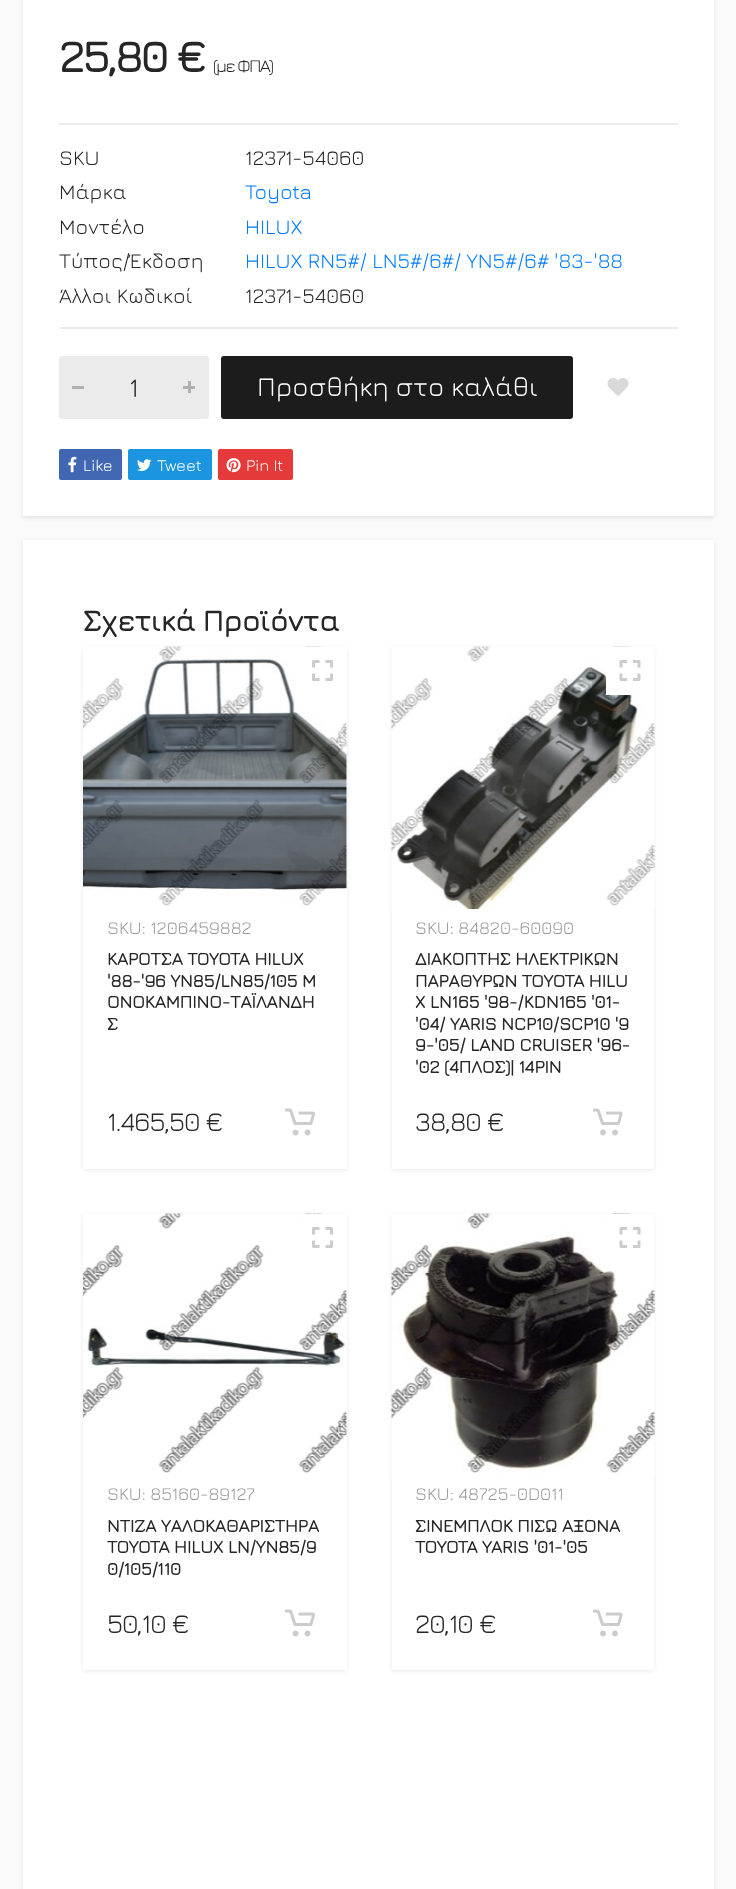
async function draw(canvas) {
  canvas.width = 736;
  canvas.height = 1889;
  const ctx = canvas.getContext('2d');
  ctx.miterLimit = 4;
  ctx.fontKerning = 'normal';
  function label(s, x, y, font, color) {
    ctx.font = font;
    ctx.fillStyle = color;
    ctx.fillText(s, x, y);
  }
  function rect(x, y, w, h, color) {
    ctx.fillStyle = color;
    ctx.fillRect(x, y, w, h);
  }
  function roundedRect(x, y, w, h, r, color) {
    ctx.fillStyle = color;
    ctx.beginPath();
    ctx.roundRect(x, y, w, h, r);
    ctx.fill();
  }
  async function image(src, x, y, w, h) {
    const img = new Image();
    img.src = src;
    await img.decode();
    ctx.drawImage(img, x, y, w, h);
  }

  rect(0, 0, 736, 1889, '#fafafa');
  ctx.fillStyle = '#00000017';
  ctx.filter = 'blur(2px)';
  ctx.beginPath();
  ctx.rect(23, -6, 691, 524);
  ctx.fill();
  ctx.filter = 'none';
  rect(23, 0, 691, 516, '#fff');
  ctx.letterSpacing = '-1.75px';
  label('25,80 €', 59, 72, 'bold 45px Jura', '#262626');
  label('(με ΦΠΑ)', 213, 72, '300 18px Jura', '#262626');
  rect(59, 123, 619, 2, '#ebebeb');
  rect(59, 327, 619, 2, '#ebebeb');
  ctx.letterSpacing = '0px';
  label('SKU', 59, 165, '300 21px Jura', '#262626');
  label('12371-54060', 245, 165, '300 21px Jura', '#262626');
  label('Μάρκα', 59, 199, '300 21px Jura', '#262626');
  label('Toyota', 245, 199, '300 21px Jura', '#007bff');
  label('Μοντέλο', 59, 234, '300 21px Jura', '#262626');
  label('HILUX', 245, 234, '300 21px Jura', '#007bff');
  label('Τύπος/Έκδοση', 59, 268, '300 21px Jura', '#262626');
  label('HILUX RN5#/ LN5#/6#/ YN5#/6# \'83-\'88', 245, 268, '300 21px Jura', '#007bff');
  label('Άλλοι Κωδικοί', 59, 303, '300 21px Jura', '#262626');
  label('12371-54060', 245, 303, '300 21px Jura', '#262626');
  ctx.fillStyle = '#ebebeb';
  ctx.beginPath();
  ctx.roundRect(60, 357, 148, 61, 2);
  ctx.fill();
  ctx.strokeStyle = '#ebebeb';
  ctx.lineWidth = 2;
  ctx.stroke();
  rect(72, 386, 12, 3, '#b0b0b0');
  label('1', 129, 397, '300 27px Jura', '#262626');
  rect(183, 386, 12, 3, '#b0b0b0');
  rect(188, 381, 3, 12, '#b0b0b0');
  roundedRect(221, 356, 352, 63, 3, '#1c1c1c');
  label('Προσθήκη στο καλάθι', 257, 396, '300 27px Jura', '#fff');
  await image('assets/img1.png', 607, 378, 22, 18);
  roundedRect(59, 449, 63, 31, 2, '#4267b2');
  await image('assets/img2.png', 68, 456, 9, 17);
  label('Like', 83, 471, '300 16.5px Jura', '#fff');
  roundedRect(128, 449, 84, 31, 2, '#1b95e0');
  await image('assets/img3.png', 137, 459, 15, 12);
  label('Tweet', 157, 471, '300 16.5px Jura', '#fff');
  roundedRect(218, 449, 75, 31, 2, '#e63939');
  await image('assets/img4.png', 226, 458, 15, 15);
  label('Pin It', 246, 471, '300 16.5px Jura', '#fff');
  ctx.fillStyle = '#00000017';
  ctx.filter = 'blur(2px)';
  ctx.beginPath();
  ctx.rect(23, 542, 691, 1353);
  ctx.fill();
  ctx.filter = 'none';
  rect(23, 540, 691, 1349, '#fff');
  label('Σχετικά Προϊόντα', 83, 631, 'bold 30px Jura', '#262626');
  ctx.fillStyle = '#00000017';
  ctx.filter = 'blur(2px)';
  ctx.beginPath();
  ctx.rect(83, 648, 264, 522);
  ctx.fill();
  ctx.filter = 'none';
  rect(83, 695, 264, 474, '#fff');
  await image('assets/img5.png', 83, 646, 264, 260);
  rect(299, 647, 48, 48, '#fff');
  await image('assets/img6.png', 312, 660, 21, 21);
  label('SKU: 1206459882', 107, 934, '300 18px Jura', '#999');
  label('ΚΑΡΟΤΣΑ TOYOTA HILUX', 107, 965, 'bold 18px Jura', '#262626');
  label('\'88-\'96 YN85/LN85/105 Μ', 107, 987, 'bold 18px Jura', '#262626');
  label('ΟΝΟΚΑΜΠΙΝΟ-ΤΑΪΛΑΝΔΗ', 107, 1008, 'bold 18px Jura', '#262626');
  label('Σ', 107, 1030, 'bold 18px Jura', '#262626');
  ctx.letterSpacing = '-1px';
  label('1.465,50 €', 107, 1131, '300 27px Jura', '#262626');
  await image('assets/img7.png', 285, 1108, 30, 28);
  ctx.fillStyle = '#00000017';
  ctx.filter = 'blur(2px)';
  ctx.beginPath();
  ctx.rect(392, 648, 262, 522);
  ctx.fill();
  ctx.filter = 'none';
  rect(392, 695, 262, 474, '#fff');
  await image('assets/img8.png', 391, 646, 264, 263);
  rect(606, 647, 48, 48, '#fff');
  await image('assets/img9.png', 619, 660, 22, 21);
  ctx.letterSpacing = '0px';
  label('SKU: 84820-60090', 415, 934, '300 18px Jura', '#999');
  label('ΔΙΑΚΟΠΤΗΣ ΗΛΕΚΤΡΙΚΩΝ', 415, 965, 'bold 18px Jura', '#262626');
  label('ΠΑΡΑΘΥΡΩΝ TOYOTA HILU', 415, 987, 'bold 18px Jura', '#262626');
  label('X LN165 \'98-/KDN165 \'01-', 415, 1008, 'bold 18px Jura', '#262626');
  label('\'04/ YARIS NCP10/SCP10 \'9', 415, 1030, 'bold 18px Jura', '#262626');
  label('9-\'05/ LAND CRUISER \'96-', 415, 1051, 'bold 18px Jura', '#262626');
  label('\'02 (4ΠΛΟΣ)| 14PIN', 415, 1073, 'bold 18px Jura', '#262626');
  ctx.letterSpacing = '-1px';
  label('38,80 €', 415, 1131, '300 27px Jura', '#262626');
  await image('assets/img10.png', 593, 1108, 30, 28);
  ctx.fillStyle = '#00000017';
  ctx.filter = 'blur(2px)';
  ctx.beginPath();
  ctx.rect(83, 1215, 264, 456);
  ctx.fill();
  ctx.filter = 'none';
  rect(83, 1262, 264, 408, '#fff');
  await image('assets/img11.png', 83, 1213, 264, 260);
  rect(299, 1214, 48, 48, '#fff');
  await image('assets/img6.png', 312, 1227, 21, 21);
  ctx.letterSpacing = '0px';
  label('SKU: 85160-89127', 107, 1500, '300 18px Jura', '#999');
  label('ΝΤΙΖΑ ΥΑΛΟΚΑΘΑΡΙΣΤΗΡΑ', 107, 1532, 'bold 18px Jura', '#262626');
  label('TOYOTA HILUX LN/YN85/9', 107, 1553, 'bold 18px Jura', '#262626');
  label('0/105/110', 107, 1575, 'bold 18px Jura', '#262626');
  ctx.letterSpacing = '-1px';
  label('50,10 €', 107, 1633, '300 27px Jura', '#262626');
  await image('assets/img7.png', 285, 1609, 30, 28);
  ctx.fillStyle = '#00000017';
  ctx.filter = 'blur(2px)';
  ctx.beginPath();
  ctx.rect(392, 1215, 262, 456);
  ctx.fill();
  ctx.filter = 'none';
  rect(392, 1262, 262, 408, '#fff');
  await image('assets/img12.png', 391, 1213, 264, 263);
  rect(606, 1214, 48, 48, '#fff');
  await image('assets/img9.png', 619, 1227, 22, 21);
  ctx.letterSpacing = '0px';
  label('SKU: 48725-0D011', 415, 1500, '300 18px Jura', '#999');
  label('ΣΙΝΕΜΠΛΟΚ ΠΙΣΩ ΑΞΟΝΑ', 415, 1532, 'bold 18px Jura', '#262626');
  label('TOYOTA YARIS \'01-\'05', 415, 1553, 'bold 18px Jura', '#262626');
  ctx.letterSpacing = '-1px';
  label('20,10 €', 415, 1633, '300 27px Jura', '#262626');
  await image('assets/img10.png', 593, 1609, 30, 28);
}

draw(document.querySelector('canvas'));
